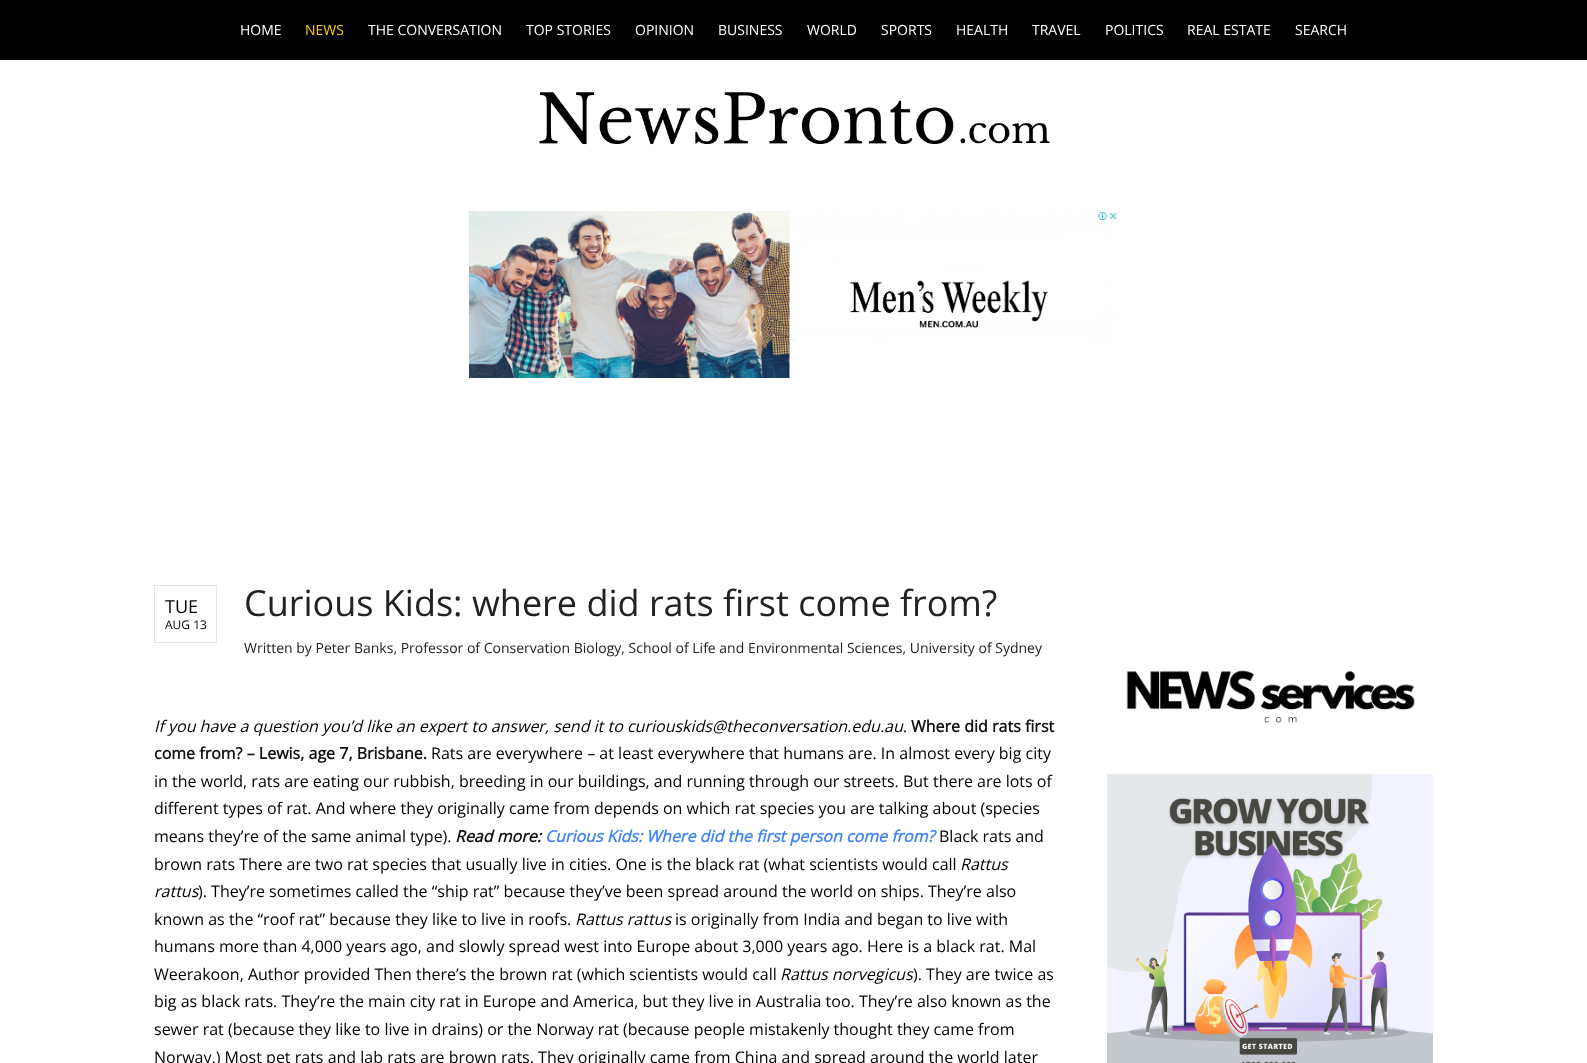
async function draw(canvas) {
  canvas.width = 1587;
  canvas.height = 1063;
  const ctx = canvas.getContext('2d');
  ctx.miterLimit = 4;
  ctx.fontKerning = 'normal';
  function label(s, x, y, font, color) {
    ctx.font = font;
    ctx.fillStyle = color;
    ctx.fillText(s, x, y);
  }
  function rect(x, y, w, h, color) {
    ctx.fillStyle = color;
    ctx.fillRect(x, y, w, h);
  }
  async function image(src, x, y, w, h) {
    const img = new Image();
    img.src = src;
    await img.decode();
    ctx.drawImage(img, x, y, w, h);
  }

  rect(0, 0, 1587, 1063, '#fff');
  rect(0, 0, 1587, 60, '#000');
  label('HOME', 240, 35, '14px Open Sans', '#fff');
  label('NEWS', 305, 35, '14px Open Sans', '#fc0');
  label('THE CONVERSATION', 368, 35, '14px Open Sans', '#fff');
  label('TOP STORIES', 526, 35, '14px Open Sans', '#fff');
  label('OPINION', 635, 35, '14px Open Sans', '#fff');
  label('BUSINESS', 718, 35, '14px Open Sans', '#fff');
  label('WORLD', 807, 35, '14px Open Sans', '#fff');
  label('SPORTS', 881, 35, '14px Open Sans', '#fff');
  label('HEALTH', 956, 35, '14px Open Sans', '#fff');
  label('TRAVEL', 1032, 35, '14px Open Sans', '#fff');
  label('POLITICS', 1105, 35, '14px Open Sans', '#fff');
  label('REAL ESTATE', 1187, 35, '14px Open Sans', '#fff');
  label('SEARCH', 1295, 35, '14px Open Sans', '#fff');
  await image('assets/img1.png', 539, 92, 511, 53);
  await image('assets/img2.png', 469, 211, 648, 167);
  ctx.strokeStyle = '#e5e5e5';
  ctx.strokeRect(154.5, 585.5, 62, 57);
  label('TUE', 165, 613, '18px Open Sans', '#000');
  label('AUG 13', 165, 629, '12px Open Sans', '#000');
  label('Curious Kids: where did rats first come from?', 244, 616, '36px Open Sans', '#222');
  label('Written by Peter Banks, Professor of Conservation Biology, School of Life and Environmental Sciences, University of Sydney', 244, 653, '14px Open Sans', '#222');
  label('If you have a question you’d like an expert to answer, send it to curiouskids@theconversation.edu.au.', 154, 732, 'italic 16px Open Sans', '#000');
  label('Where did rats first', 911, 732, 'bold 16px Open Sans', '#111');
  label('come from? – Lewis, age 7, Brisbane.', 154, 759, 'bold 16px Open Sans', '#111');
  label('Rats are everywhere – at least everywhere that humans are. In almost every big city', 431, 759, '16px Open Sans', '#000');
  label('in the world, rats are eating our rubbish, breeding in our buildings, and running through our streets. But there are lots of', 154, 787, '16px Open Sans', '#000');
  label('different types of rat. And where they originally came from depends on which rat species you are talking about (species', 154, 814, '16px Open Sans', '#000');
  label('means they’re of the same animal type).', 154, 842, '16px Open Sans', '#000');
  label('Read more:', 455, 842, 'italic bold 16px Open Sans', '#111');
  label('Curious Kids: Where did the first person come from?', 545, 842, 'italic bold 16px Open Sans', '#4285f4');
  label('Black rats and', 939, 842, '16px Open Sans', '#000');
  label('brown rats There are two rat species that usually live in cities. One is the black rat (what scientists would call', 154, 870, '16px Open Sans', '#000');
  label('Rattus', 960, 870, 'italic 16px Open Sans', '#000');
  label('rattus', 154, 897, 'italic 16px Open Sans', '#000');
  label('). They’re sometimes called the “ship rat” because they’ve been spread around the world on ships. They’re also', 198, 897, '16px Open Sans', '#000');
  label('known as the “roof rat” because they like to live in roofs.', 154, 925, '16px Open Sans', '#000');
  label('Rattus rattus', 575, 925, 'italic 16px Open Sans', '#000');
  label('is originally from India and began to live with', 675, 925, '16px Open Sans', '#000');
  label('humans more than 4,000 years ago, and slowly spread west into Europe about 3,000 years ago. Here is a black rat. Mal', 154, 952, '16px Open Sans', '#000');
  label('Weerakoon, Author provided Then there’s the brown rat (which scientists would call', 154, 980, '16px Open Sans', '#000');
  label('Rattus norvegicus', 780, 980, 'italic 16px Open Sans', '#000');
  label('). They are twice as', 913, 980, '16px Open Sans', '#000');
  label('big as black rats. They’re the main city rat in Europe and America, but they live in Australia too. They’re also known as the', 154, 1007, '16px Open Sans', '#000');
  label('sewer rat (because they like to live in drains) or the Norway rat (because people mistakenly thought they came from', 154, 1035, '16px Open Sans', '#000');
  label('Norway.) Most pet rats and lab rats are brown rats. They originally came from China and spread around the world later', 154, 1063, '16px Open Sans', '#000');
  await image('assets/img3.png', 1126, 670, 289, 53);
  await image('assets/img4.png', 1107, 774, 326, 289);
}

draw(document.querySelector('canvas'));
